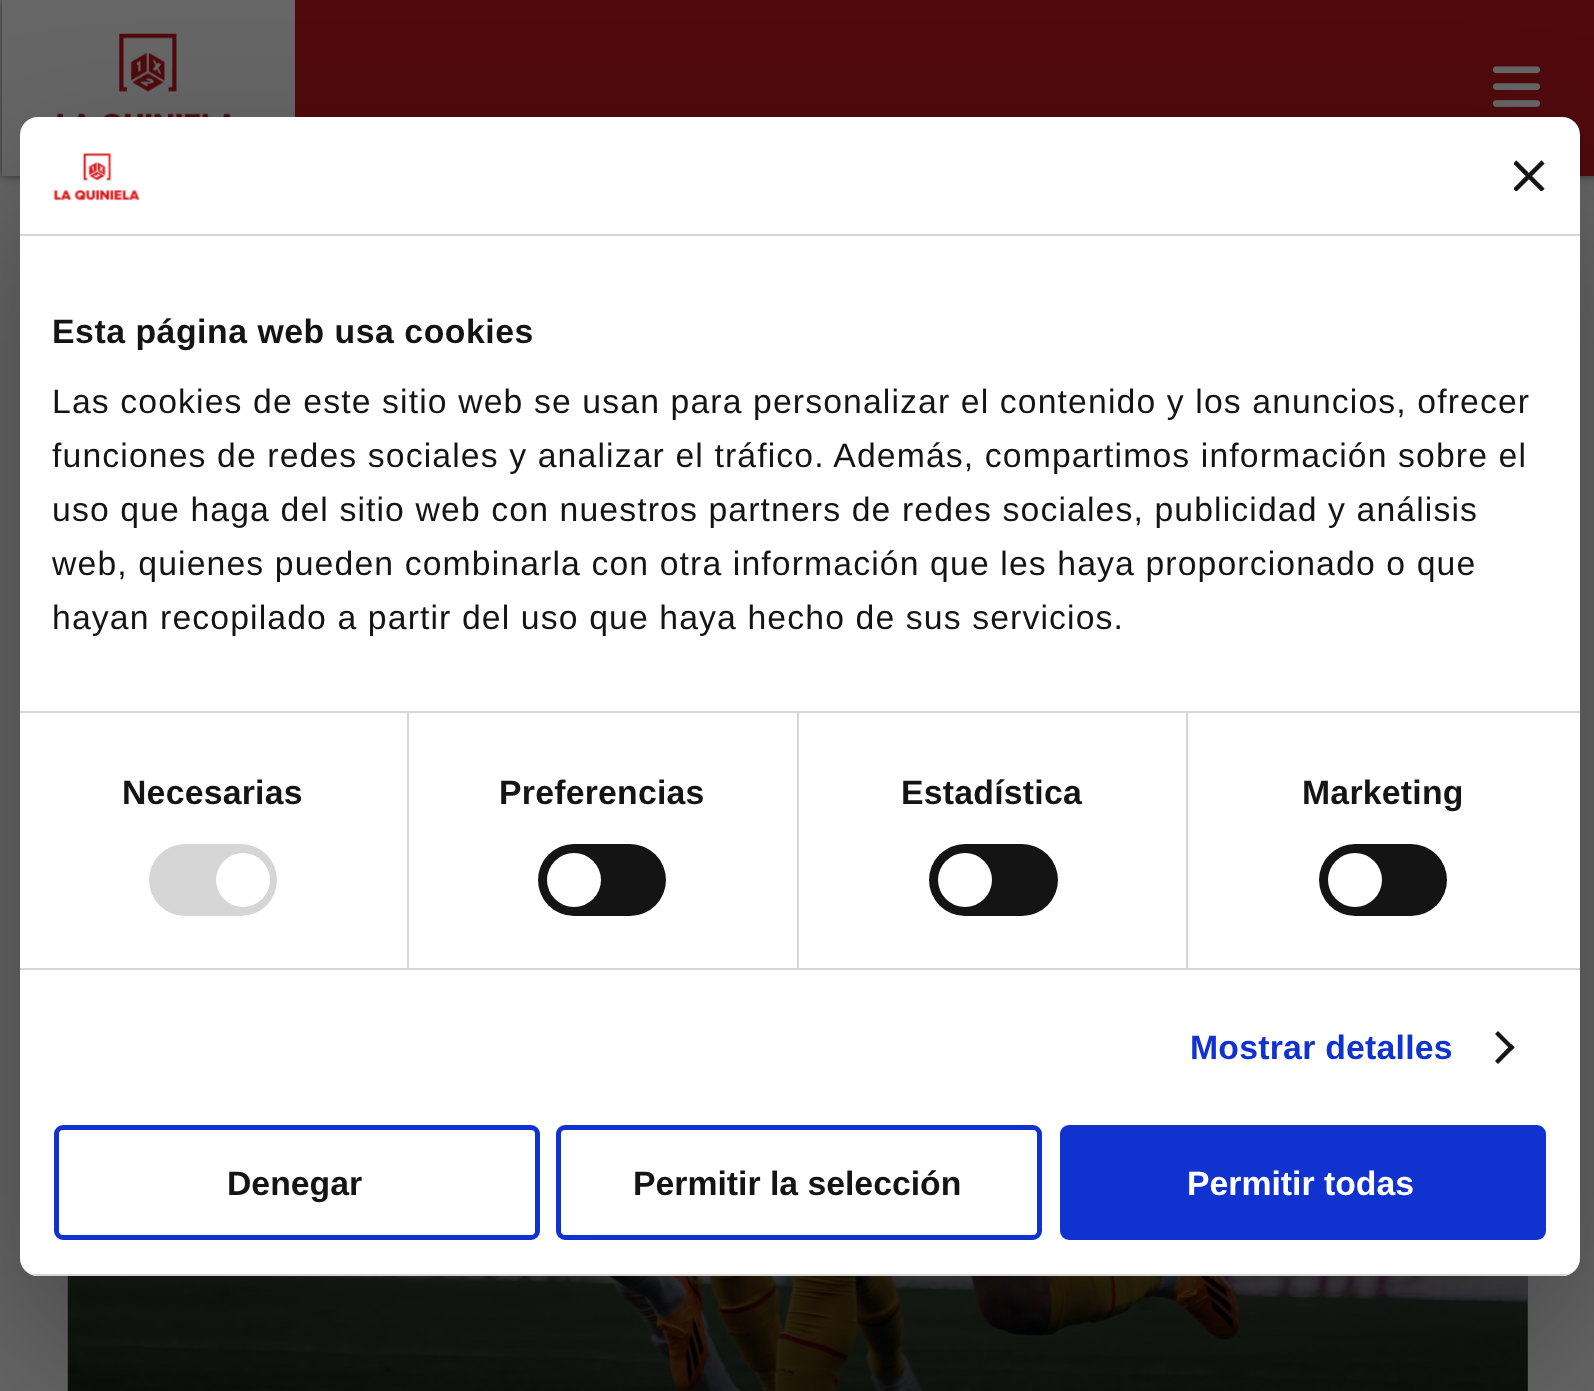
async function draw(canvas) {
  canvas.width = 1594;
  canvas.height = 1391;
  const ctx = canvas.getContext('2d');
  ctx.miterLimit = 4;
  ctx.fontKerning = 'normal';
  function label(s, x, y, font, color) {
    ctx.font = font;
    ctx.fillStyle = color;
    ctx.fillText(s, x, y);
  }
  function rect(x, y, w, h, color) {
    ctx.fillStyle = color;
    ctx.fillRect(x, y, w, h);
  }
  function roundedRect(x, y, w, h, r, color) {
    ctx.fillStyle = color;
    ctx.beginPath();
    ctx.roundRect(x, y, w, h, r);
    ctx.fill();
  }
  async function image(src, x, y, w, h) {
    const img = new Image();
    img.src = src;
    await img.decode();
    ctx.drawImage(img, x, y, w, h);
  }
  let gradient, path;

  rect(0, 0, 1594, 1391, '#666');
  ctx.fillStyle = '#00000080';
  ctx.filter = 'blur(4.5px)';
  ctx.beginPath();
  ctx.rect(2, 0, 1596, 176);
  ctx.fill();
  ctx.filter = 'none';
  rect(295, 0, 1299, 176, '#500a0d');
  rect(2, 0, 293, 176, '#666');
  await image('assets/img1.png', 57, 33, 174, 84);
  await image('assets/img2.png', 1492, 66, 49, 41);
  await image('assets/img5.png', 67, 1276, 1461, 115);
  gradient = ctx.createLinearGradient(798, 614, 798, 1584);
  gradient.addColorStop(0.52, '#00000000');
  gradient.addColorStop(0.82, '#00000099');
  ctx.fillStyle = gradient;
  ctx.fillRect(68, 1276, 1460, 115);
  ctx.fillStyle = '#0000004d';
  ctx.filter = 'blur(76.5px)';
  ctx.beginPath();
  ctx.roundRect(20, 189, 1560, 1159, 18);
  ctx.fill();
  ctx.filter = 'none';
  roundedRect(20, 117, 1560, 1159, 18, '#fff');
  rect(20, 234, 1560, 2, '#d6d6d6');
  await image('assets/img3.png', 53, 153, 87, 48);
  await image('assets/img4.png', 1514, 160, 31, 31);
  rect(20, 711, 1560, 2, '#d6d6d6');
  ctx.letterSpacing = '0.55px';
  label('Esta página web usa cookies', 52, 343, 'bold 33.75px Liberation Sans', '#141414');
  ctx.letterSpacing = '1.12px';
  label('Las cookies de este sitio web se usan para personalizar el contenido y los anuncios, ofrecer', 52, 413, '33.75px Liberation Sans', '#141414');
  label('funciones de redes sociales y analizar el tráfico. Además, compartimos información sobre el', 52, 467, '33.75px Liberation Sans', '#141414');
  label('uso que haga del sitio web con nuestros partners de redes sociales, publicidad y análisis', 52, 521, '33.75px Liberation Sans', '#141414');
  label('web, quienes pueden combinarla con otra información que les haya proporcionado o que', 52, 575, '33.75px Liberation Sans', '#141414');
  label('hayan recopilado a partir del uso que haya hecho de sus servicios.', 52, 629, '33.75px Liberation Sans', '#141414');
  rect(20, 968, 1560, 2, '#d6d6d6');
  rect(407, 713, 2, 255, '#d6d6d6');
  ctx.letterSpacing = '0.25px';
  label('Necesarias', 122, 804, 'bold 33.75px Liberation Sans', '#141414');
  roundedRect(149, 844, 128, 72, 36, '#d6d6d6');
  ctx.fillStyle = '#fff';
  ctx.beginPath();
  ctx.arc(243, 880, 27, 0, 2 * Math.PI);
  ctx.fill();
  rect(797, 713, 2, 255, '#d6d6d6');
  label('Preferencias', 499, 804, 'bold 33.75px Liberation Sans', '#141414');
  roundedRect(538, 844, 128, 72, 36, '#141414');
  ctx.fillStyle = '#fff';
  ctx.beginPath();
  ctx.arc(574, 880, 27, 0, 2 * Math.PI);
  ctx.fill();
  rect(1186, 713, 2, 255, '#d6d6d6');
  label('Estadística', 901, 804, 'bold 33.75px Liberation Sans', '#141414');
  roundedRect(929, 844, 129, 72, 36, '#141414');
  ctx.fillStyle = '#fff';
  ctx.beginPath();
  ctx.arc(965, 880, 27, 0, 2 * Math.PI);
  ctx.fill();
  label('Marketing', 1302, 804, 'bold 33.75px Liberation Sans', '#141414');
  roundedRect(1319, 844, 128, 72, 36, '#141414');
  ctx.fillStyle = '#fff';
  ctx.beginPath();
  ctx.arc(1355, 880, 27, 0, 2 * Math.PI);
  ctx.fill();
  label('Mostrar detalles', 1190, 1059, 'bold 33.75px Liberation Sans', '#1032cf');
  ctx.fillStyle = '#141414';
  path = new Path2D('M1498 1031L1514.5 1047.5L1511.5 1050.5L1495 1034Z');
  ctx.fill(path);
  path = new Path2D('M1511.5 1044L1514.5 1047.5L1498 1064L1495 1061Z');
  ctx.fill(path);
  ctx.save();
  ctx.beginPath();
  ctx.roundRect(20, 117, 1560, 1159, 18);
  ctx.clip();
  rect(30, 1274, 1540, 2, '#d6d6d6');
  ctx.restore();
  ctx.beginPath();
  ctx.roundRect(56.5, 1127.5, 481, 110, 6.5);
  ctx.strokeStyle = '#1032cf';
  ctx.lineWidth = 5;
  ctx.stroke();
  ctx.letterSpacing = '0px';
  label('Denegar', 227, 1195, 'bold 33.75px Liberation Sans', '#141414');
  ctx.beginPath();
  ctx.roundRect(558.5, 1127.5, 481, 110, 6.5);
  ctx.stroke();
  label('Permitir la selección', 633, 1195, 'bold 33.75px Liberation Sans', '#141414');
  ctx.fillStyle = '#1032cf';
  ctx.beginPath();
  ctx.roundRect(1062.5, 1127.5, 481, 110, 6.5);
  ctx.fill();
  ctx.stroke();
  label('Permitir todas', 1187, 1195, 'bold 33.75px Liberation Sans', '#fff');
}

draw(document.querySelector('canvas'));
